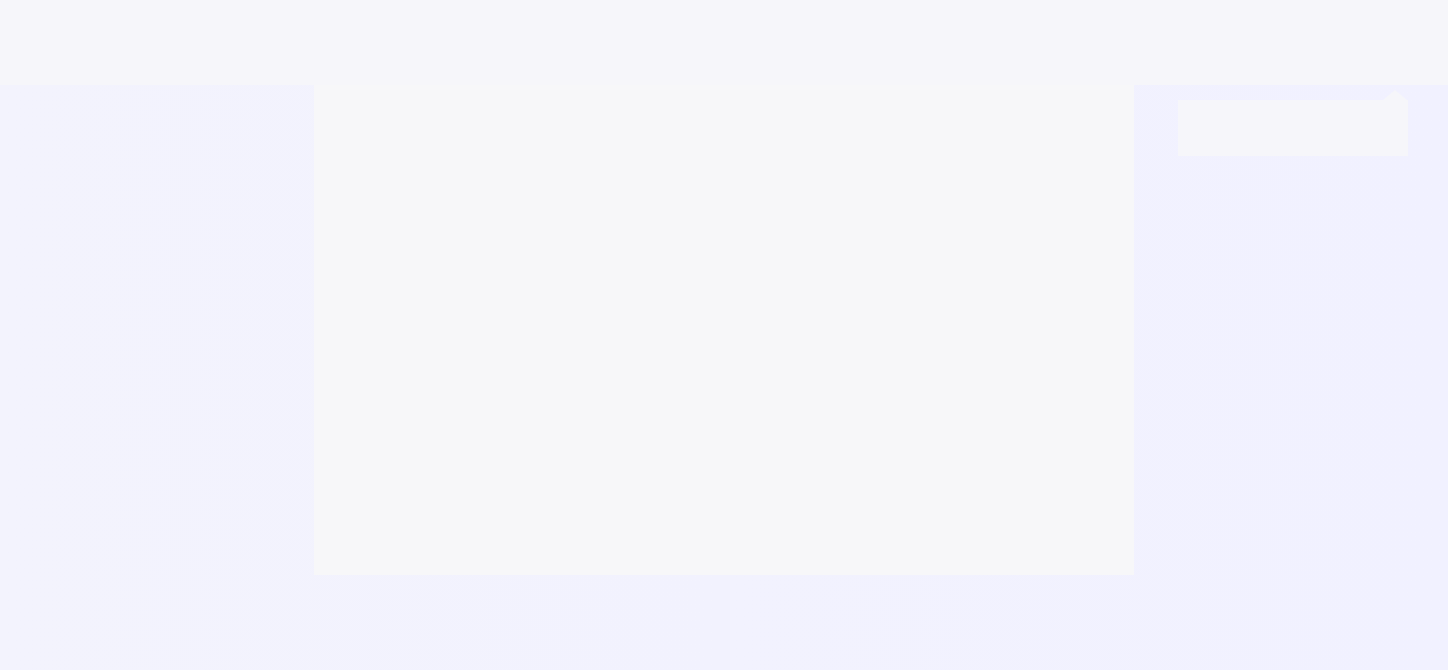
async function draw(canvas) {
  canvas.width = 1448;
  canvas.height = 670;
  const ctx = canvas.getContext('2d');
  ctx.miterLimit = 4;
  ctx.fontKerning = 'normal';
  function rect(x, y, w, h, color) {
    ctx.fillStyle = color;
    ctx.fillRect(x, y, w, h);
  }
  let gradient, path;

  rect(0, 0, 1448, 670, '#fff');
  rect(0, 0, 1448, 85, '#f6f6fa');
  gradient = ctx.createLinearGradient(1448, 391, 0, 392);
  gradient.addColorStop(0, '#f1f1ff');
  gradient.addColorStop(1, '#f3f3fd');
  ctx.fillStyle = gradient;
  ctx.fillRect(0, 85, 1448, 585);
  rect(314, 85, 820, 490, '#f7f7f9');
  ctx.fillStyle = '#f6f6fa';
  path = new Path2D('M1407 100H1383L1395 90Z');
  ctx.fill(path);
  rect(1178, 100, 230, 56, '#f6f6fa');
}

draw(document.querySelector('canvas'));
